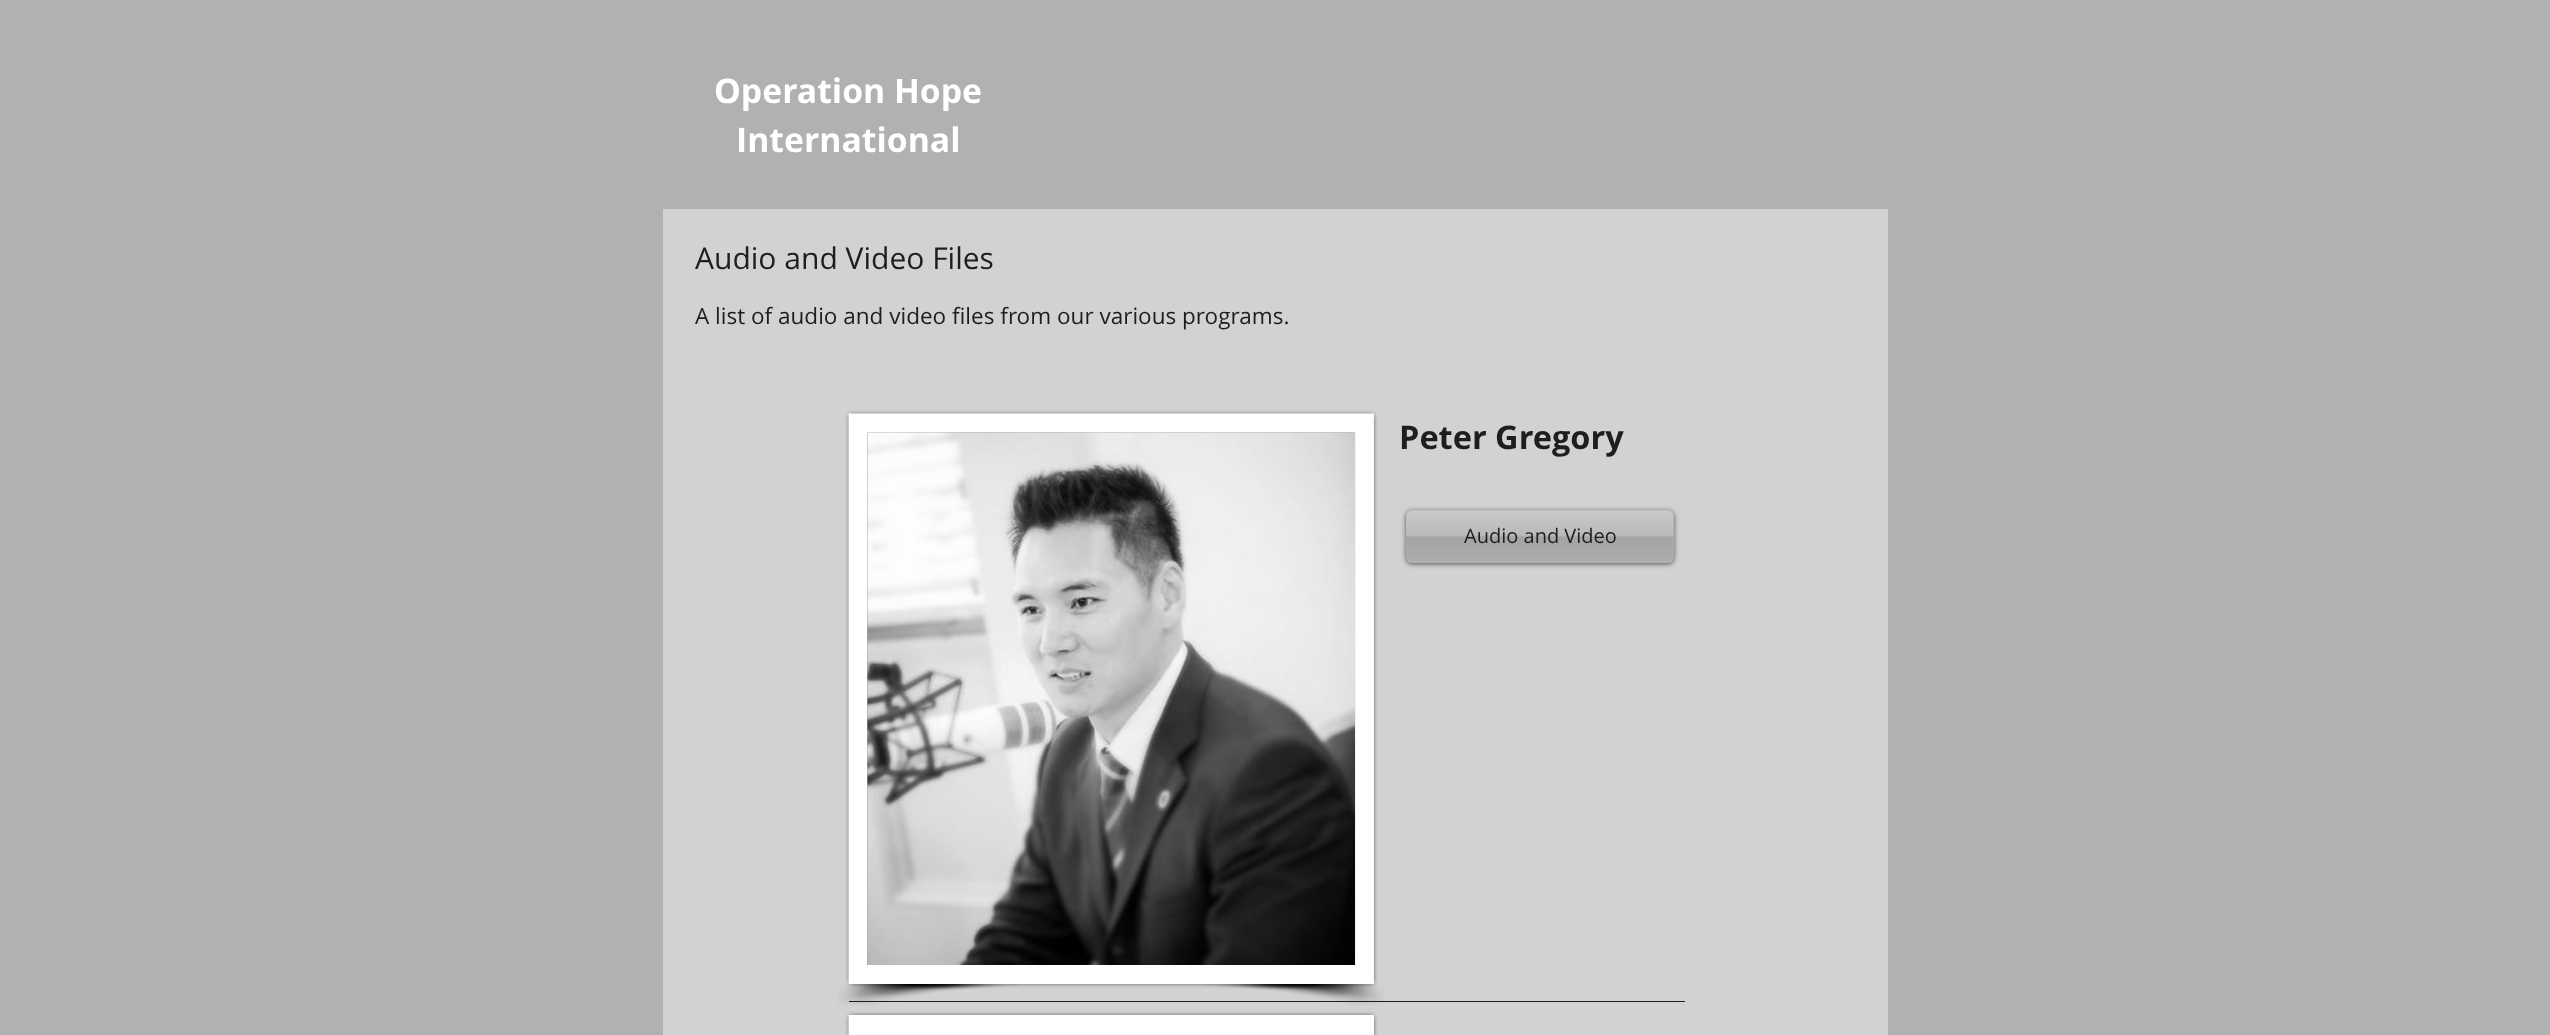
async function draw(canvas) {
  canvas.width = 2550;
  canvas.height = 1035;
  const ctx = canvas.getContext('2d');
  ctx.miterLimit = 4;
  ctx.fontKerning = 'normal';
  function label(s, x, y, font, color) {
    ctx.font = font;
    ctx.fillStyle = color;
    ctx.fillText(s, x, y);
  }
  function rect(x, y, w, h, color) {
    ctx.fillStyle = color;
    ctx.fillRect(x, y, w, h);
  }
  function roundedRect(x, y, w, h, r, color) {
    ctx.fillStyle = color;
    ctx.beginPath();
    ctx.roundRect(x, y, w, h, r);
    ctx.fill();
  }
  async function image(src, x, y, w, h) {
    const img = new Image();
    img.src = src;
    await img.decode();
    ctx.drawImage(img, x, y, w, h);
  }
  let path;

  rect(0, 0, 2550, 1035, '#b2b1b1');
  label('Operation Hope', 714, 103, 'bold 33.75px Open Sans', '#fff');
  label('International', 736, 152, 'bold 33.75px Open Sans', '#fff');
  rect(663, 209, 1225, 826, '#d2d2d2');
  label('Audio and Video Files', 695, 269, '30px Open Sans', '#1e1e1e');
  label('A list of audio and video files from our various programs.', 695, 324, '22.5px Open Sans', '#1e1e1e');
  ctx.fillStyle = '#00000080';
  ctx.filter = 'blur(2px)';
  ctx.beginPath();
  ctx.roundRect(849, 414, 525, 570, 4);
  ctx.fill();
  ctx.filter = 'none';
  path = new Path2D('M858 423H1364.5V974.5H858Z');
  ctx.strokeStyle = '#fff';
  ctx.lineWidth = 18.8;
  ctx.stroke(path);
  await image('assets/img1.png', 867, 432, 488, 533);
  await image('assets/img2.png', 838, 984, 183, 21);
  await image('assets/img3.png', 1202, 984, 182, 21);
  label('Peter Gregory', 1399, 449, 'bold 32.5px Open Sans', '#1e1e1e');
  ctx.fillStyle = '#00000099';
  ctx.filter = 'blur(2.5px)';
  ctx.beginPath();
  ctx.roundRect(1406, 511, 268, 53, 6);
  ctx.fill();
  ctx.filter = 'none';
  roundedRect(1406, 510, 268, 53, 6, '#b2b1b1');
  await image('assets/img4.png', 1406, 510, 268, 51);
  label('Audio and Video', 1464, 543, '20px Open Sans', '#1e1e1e');
  rect(849, 1001, 836, 1, '#1e1e1e');
  ctx.fillStyle = '#00000080';
  ctx.filter = 'blur(2px)';
  ctx.beginPath();
  ctx.roundRect(849, 1015, 525, 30, 4);
  ctx.fill();
  ctx.filter = 'none';
  roundedRect(849, 1015, 525, 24, 4, '#fff');
  path = new Path2D('M858 1024.5H1364.5V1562H858Z');
  ctx.stroke(path);
}

draw(document.querySelector('canvas'));
